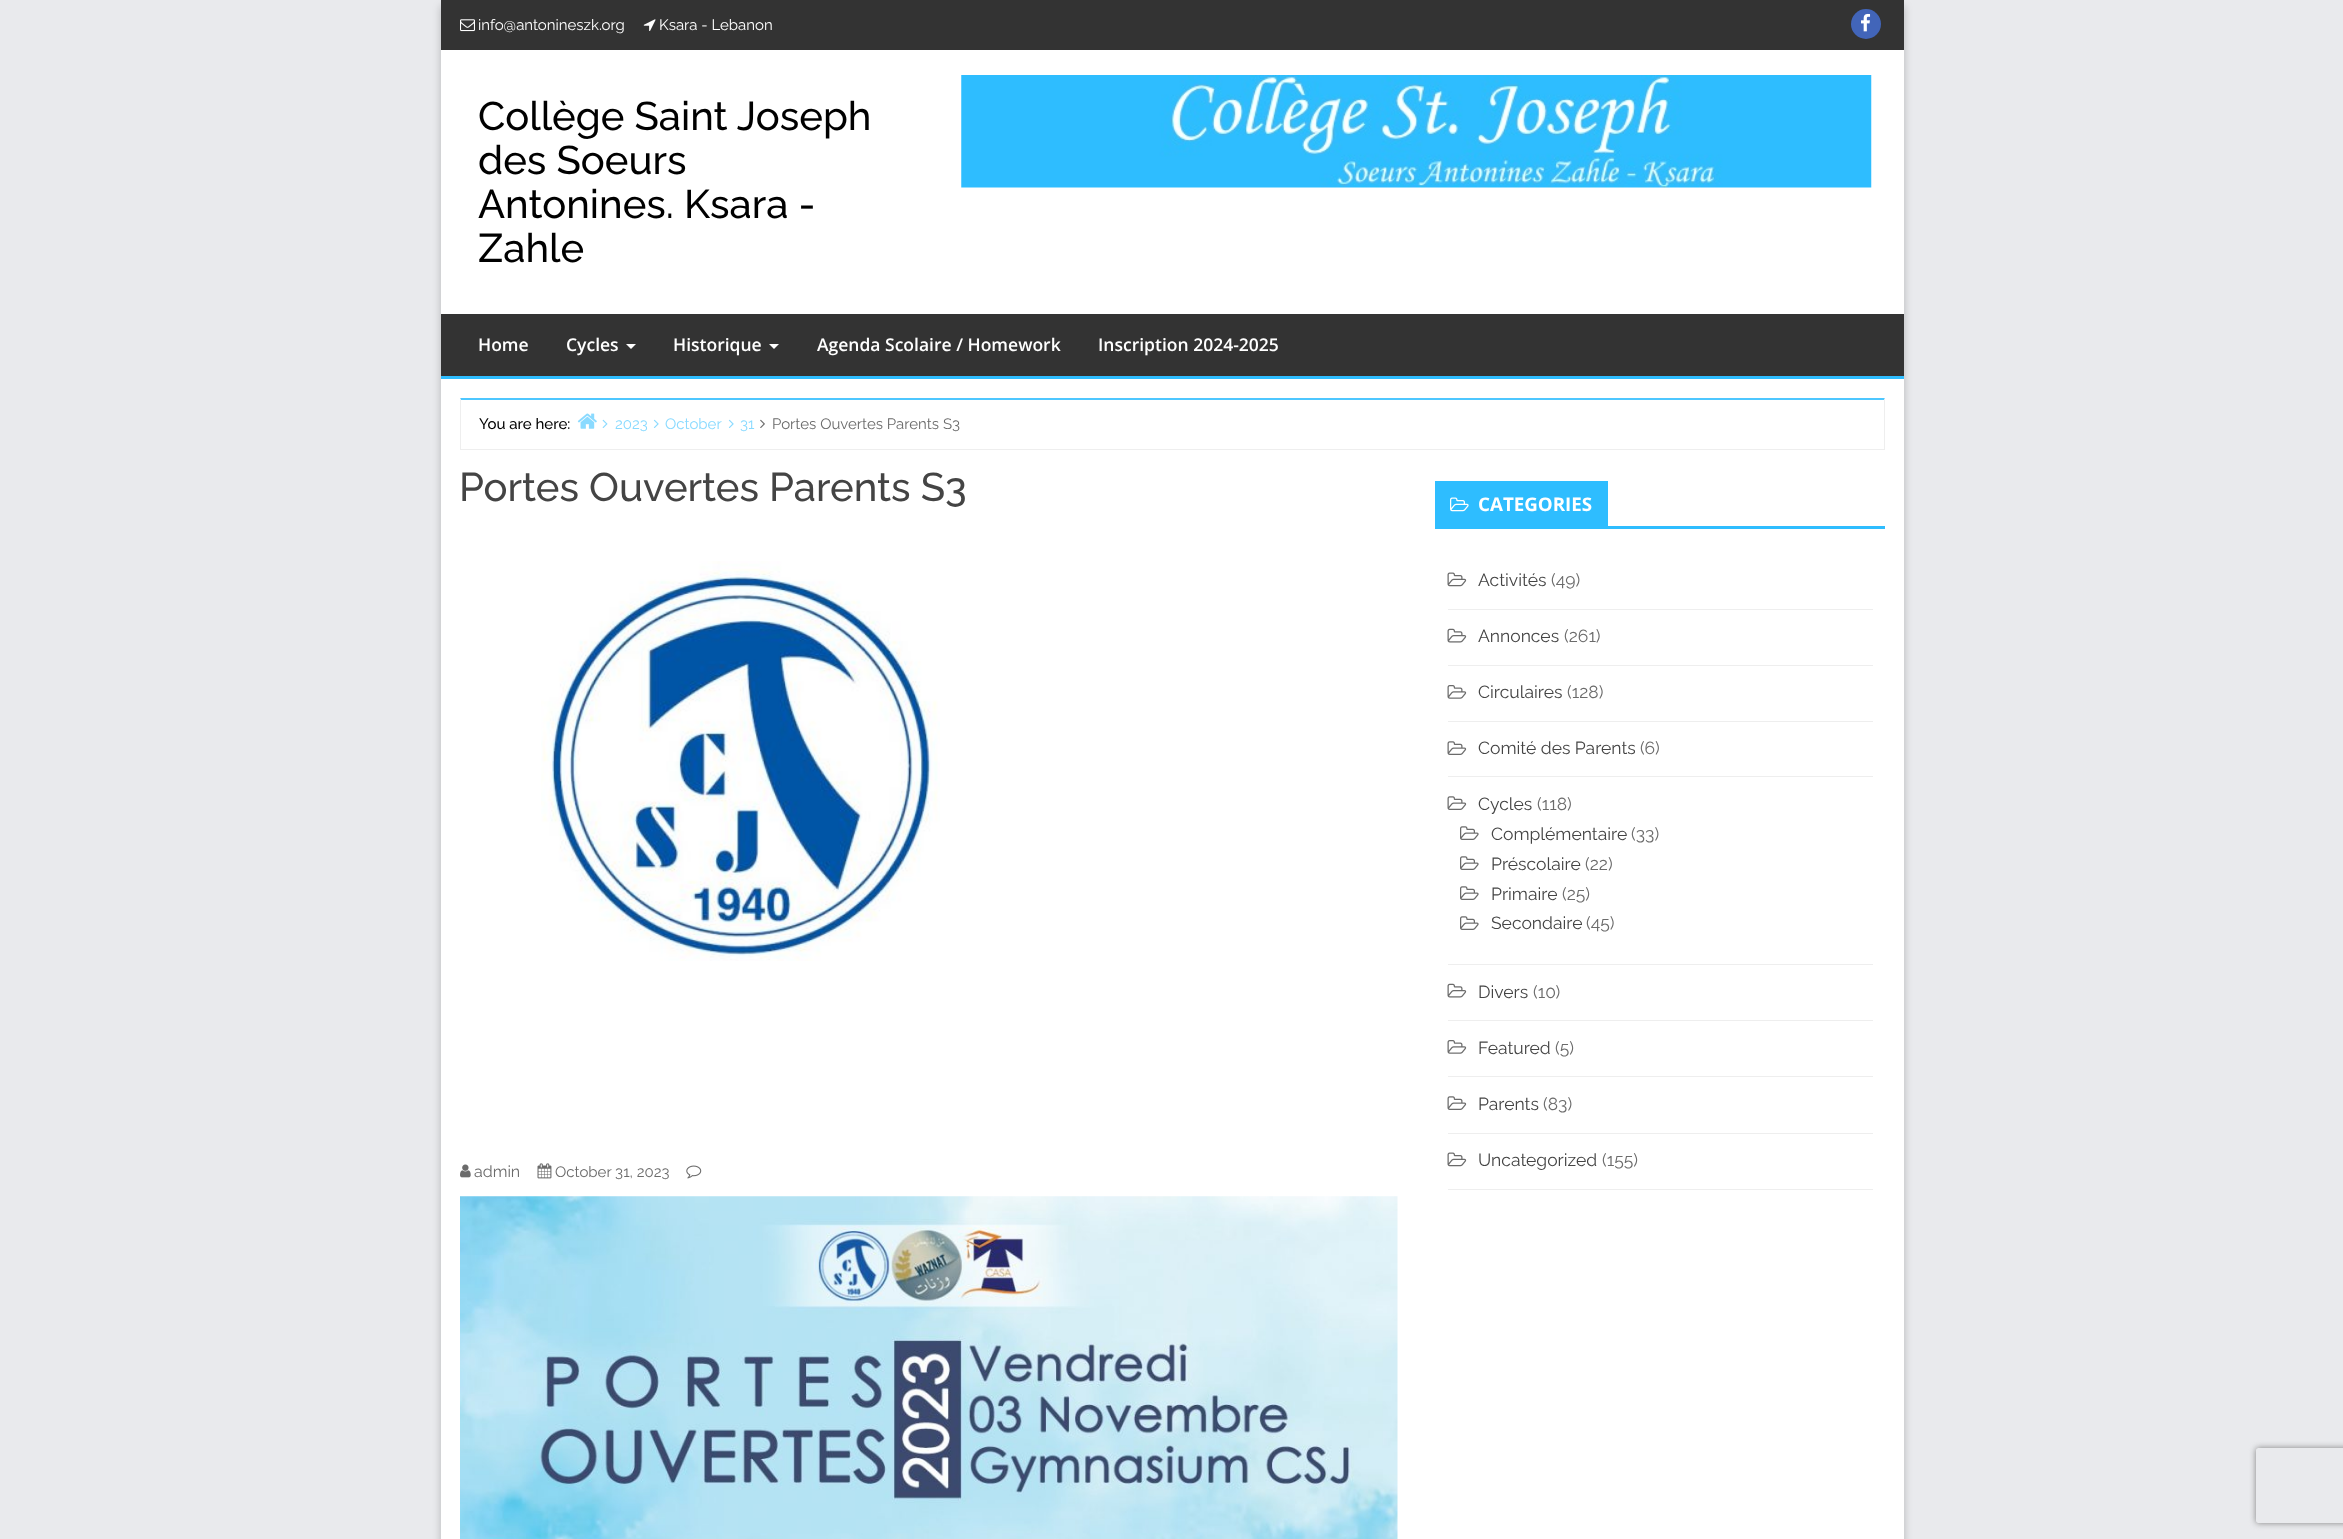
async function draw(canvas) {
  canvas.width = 2343;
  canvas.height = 1539;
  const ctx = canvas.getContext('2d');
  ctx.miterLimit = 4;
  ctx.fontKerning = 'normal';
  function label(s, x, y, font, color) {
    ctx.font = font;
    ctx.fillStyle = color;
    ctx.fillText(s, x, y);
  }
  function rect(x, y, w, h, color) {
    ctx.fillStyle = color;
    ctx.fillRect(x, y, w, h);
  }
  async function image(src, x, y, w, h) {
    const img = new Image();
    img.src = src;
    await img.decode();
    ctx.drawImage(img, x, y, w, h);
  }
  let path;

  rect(0, 0, 2343, 1539, '#e9eaed');
  ctx.fillStyle = '#00000038';
  ctx.filter = 'blur(4.5px)';
  ctx.beginPath();
  ctx.rect(441, 6, 1463, 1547);
  ctx.fill();
  ctx.filter = 'none';
  rect(441, 50, 1463, 1489, '#fff');
  rect(441, 0, 1463, 50, '#333');
  await image('assets/img1.png', 460, 19, 15, 13);
  label('info@antonineszk.org', 478, 30, '15px Raleway', '#fff');
  await image('assets/img2.png', 643, 19, 13, 12);
  label('Ksara - Lebanon', 659, 30, '15px Raleway', '#fff');
  ctx.fillStyle = '#4265b9';
  ctx.beginPath();
  ctx.arc(1866, 24, 15, 0, 2 * Math.PI);
  ctx.fill();
  await image('assets/img3.png', 1861, 13, 10, 19);
  label('Collège Saint Joseph', 478, 130, '500 40px Raleway', '#000');
  label('des Soeurs', 478, 174, '500 40px Raleway', '#000');
  label('Antonines. Ksara -', 478, 218, '500 40px Raleway', '#000');
  label('Zahle', 478, 262, '500 40px Raleway', '#000');
  await image('assets/img4.png', 961, 75, 911, 113);
  rect(441, 314, 1463, 62, '#333');
  rect(441, 376, 1463, 3, '#2ebdff');
  label('Home', 478, 351, '600 17.5px Open Sans', '#fff');
  label('Cycles', 566, 351, '600 17.5px Open Sans', '#fff');
  path = new Path2D('M626 344H636L631 349Z');
  ctx.fill(path);
  label('Historique', 673, 351, '600 17.5px Open Sans', '#fff');
  path = new Path2D('M769 344H779L774 349Z');
  ctx.fill(path);
  label('Agenda Scolaire / Homework', 817, 351, '600 17.5px Open Sans', '#fff');
  label('Inscription 2024-2025', 1098, 351, '600 17.5px Open Sans', '#fff');
  ctx.fillStyle = '#4dc7ff';
  path = new Path2D('M460 398H1885L1884 400H461Z');
  ctx.fill(path);
  ctx.fillStyle = '#eee';
  path = new Path2D('M1885 398V450L1884 449V400Z');
  ctx.fill(path);
  rect(460, 449, 1425, 1, '#eee');
  path = new Path2D('M460 450V398L461 400V449Z');
  ctx.fill(path);
  label('You are here:', 479, 429, '500 15px Raleway', '#000');
  await image('assets/img5.png', 577, 413, 20, 16);
  await image('assets/img6.png', 602, 419, 6, 9);
  label('2023', 615, 429, '15px Raleway', '#89daff');
  await image('assets/img7.png', 653, 419, 6, 9);
  label('October', 665, 429, '15px Raleway', '#89daff');
  await image('assets/img7.png', 728, 419, 6, 9);
  label('31', 740, 429, '15px Raleway', '#89daff');
  await image('assets/img8.png', 760, 419, 5, 9);
  label('Portes Ouvertes Parents S3', 772, 429, '15px Raleway', '#6b6b6b');
  label('Portes Ouvertes Parents S3', 459, 501, '500 40px Raleway', '#444');
  await image('assets/img9.png', 541, 561, 399, 400);
  await image('assets/img10.png', 460, 1164, 11, 14);
  label('admin', 474, 1177, '16px Raleway', '#6b6b6b');
  await image('assets/img11.png', 537, 1163, 15, 16);
  label('October 31, 2023', 555, 1177, '15px Raleway', '#6b6b6b');
  await image('assets/img12.png', 686, 1165, 16, 14);
  await image('assets/img13.png', 460, 1196, 938, 343);
  rect(1435, 526, 450, 3, '#2ebdff');
  rect(1435, 481, 173, 45, '#2ebdff');
  await image('assets/img14.png', 1450, 497, 19, 15);
  label('CATEGORIES', 1478, 511, 'bold 18.75px Open Sans', '#fff');
  rect(1448, 609, 425, 1, '#eee');
  await image('assets/img15.png', 1447, 572, 20, 15);
  label('Activités', 1478, 586, '17.5px Raleway', '#444');
  label('(49)', 1551, 586, '17.5px Raleway', '#6b6b6b');
  rect(1448, 665, 425, 1, '#eee');
  await image('assets/img16.png', 1447, 628, 20, 15);
  label('Annonces', 1478, 642, '17.5px Raleway', '#444');
  label('(261)', 1564, 642, '17.5px Raleway', '#6b6b6b');
  rect(1448, 721, 425, 1, '#eee');
  await image('assets/img17.png', 1447, 685, 20, 14);
  label('Circulaires', 1478, 698, '17.5px Raleway', '#444');
  label('(128)', 1567, 698, '17.5px Raleway', '#6b6b6b');
  rect(1448, 776, 425, 1, '#eee');
  await image('assets/img18.png', 1447, 741, 20, 14);
  label('Comité des Parents', 1478, 754, '17.5px Raleway', '#444');
  label('(6)', 1640, 754, '17.5px Raleway', '#6b6b6b');
  rect(1448, 964, 425, 1, '#eee');
  await image('assets/img18.png', 1447, 796, 20, 14);
  label('Cycles', 1478, 810, '17.5px Raleway', '#444');
  label('(118)', 1537, 810, '17.5px Raleway', '#6b6b6b');
  await image('assets/img19.png', 1460, 826, 19, 14);
  label('Complémentaire', 1491, 840, '17.5px Raleway', '#444');
  label('(33)', 1631, 840, '17.5px Raleway', '#6b6b6b');
  await image('assets/img19.png', 1460, 856, 19, 14);
  label('Préscolaire', 1491, 870, '17.5px Raleway', '#444');
  label('(22)', 1585, 870, '17.5px Raleway', '#6b6b6b');
  await image('assets/img19.png', 1460, 886, 19, 14);
  label('Primaire', 1491, 900, '17.5px Raleway', '#444');
  label('(25)', 1562, 900, '17.5px Raleway', '#6b6b6b');
  await image('assets/img19.png', 1460, 916, 19, 14);
  label('Secondaire', 1491, 929, '17.5px Raleway', '#444');
  label('(45)', 1586, 929, '17.5px Raleway', '#6b6b6b');
  rect(1448, 1020, 425, 1, '#eee');
  await image('assets/img16.png', 1447, 983, 20, 15);
  label('Divers', 1478, 998, '17.5px Raleway', '#444');
  label('(10)', 1533, 998, '17.5px Raleway', '#6b6b6b');
  rect(1448, 1076, 425, 1, '#eee');
  await image('assets/img17.png', 1447, 1040, 20, 14);
  label('Featured', 1478, 1054, '17.5px Raleway', '#444');
  label('(5)', 1555, 1054, '17.5px Raleway', '#6b6b6b');
  rect(1448, 1133, 425, 1, '#eee');
  await image('assets/img18.png', 1447, 1096, 20, 14);
  label('Parents', 1478, 1110, '17.5px Raleway', '#444');
  label('(83)', 1543, 1110, '17.5px Raleway', '#6b6b6b');
  rect(1448, 1189, 425, 1, '#eee');
  await image('assets/img15.png', 1447, 1152, 20, 15);
  label('Uncategorized', 1478, 1166, '17.5px Raleway', '#444');
  label('(155)', 1602, 1166, '17.5px Raleway', '#6b6b6b');
  ctx.save();
  path = new Path2D('M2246 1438H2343V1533H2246ZM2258.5 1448H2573.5C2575 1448 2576 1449 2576 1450.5V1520.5C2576 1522 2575 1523 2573.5 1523H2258.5C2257 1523 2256 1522 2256 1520.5V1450.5C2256 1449 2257 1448 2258.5 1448Z');
  ctx.clip(path, 'evenodd');
  ctx.fillStyle = '#808080';
  ctx.filter = 'blur(3px)';
  ctx.beginPath();
  ctx.roundRect(2256, 1448, 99, 75, 2.5);
  ctx.fill();
  ctx.filter = 'none';
  ctx.restore();
}

draw(document.querySelector('canvas'));
